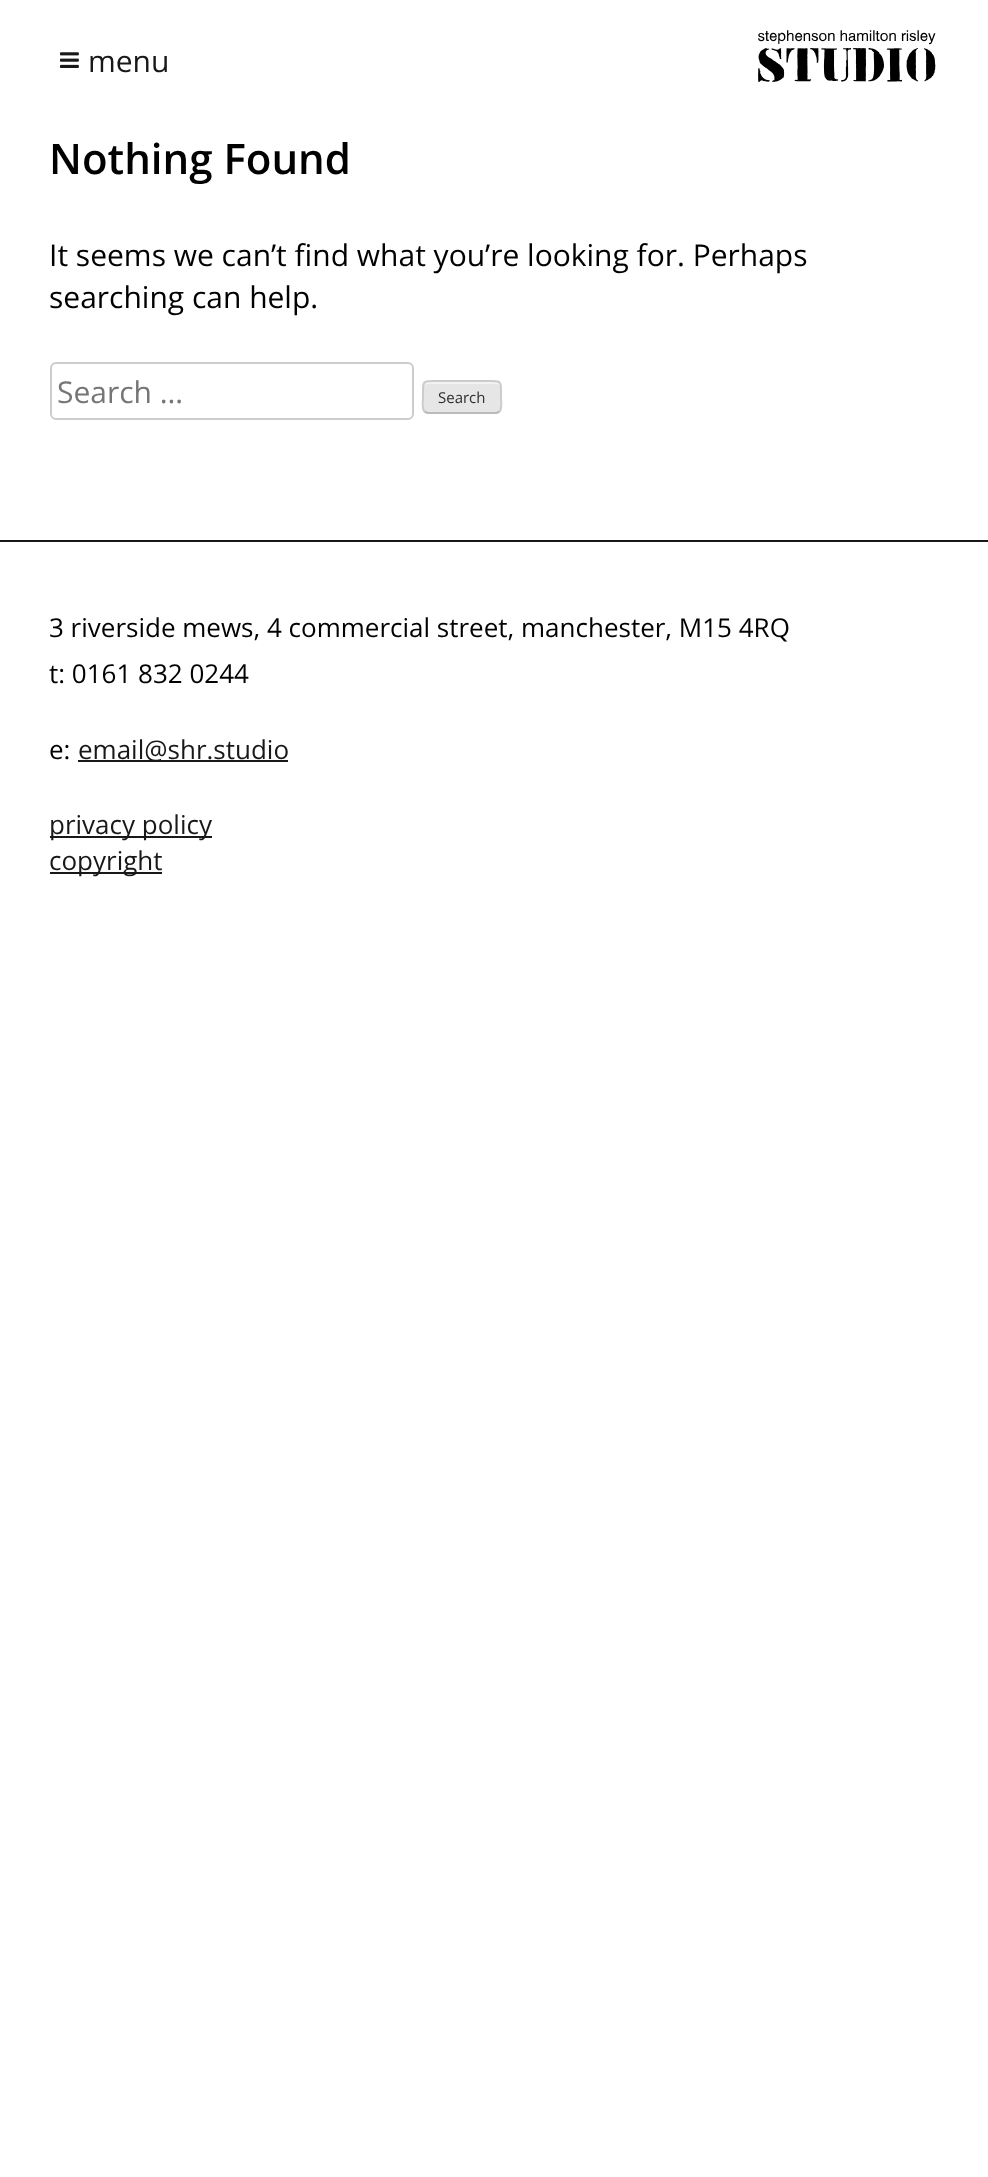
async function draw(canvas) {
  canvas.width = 988;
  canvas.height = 2177;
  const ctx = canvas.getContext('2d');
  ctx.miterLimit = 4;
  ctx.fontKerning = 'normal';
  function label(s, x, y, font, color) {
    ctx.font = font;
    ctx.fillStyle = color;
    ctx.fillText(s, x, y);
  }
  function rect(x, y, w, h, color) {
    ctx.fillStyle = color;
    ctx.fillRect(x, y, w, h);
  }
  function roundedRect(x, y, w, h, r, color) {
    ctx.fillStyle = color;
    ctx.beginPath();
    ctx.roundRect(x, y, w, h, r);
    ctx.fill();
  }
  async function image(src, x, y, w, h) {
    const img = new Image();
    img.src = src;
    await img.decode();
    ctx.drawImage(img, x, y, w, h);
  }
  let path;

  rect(0, 0, 988, 2177, '#fff');
  await image('assets/img1.png', 60, 52, 19, 16);
  label('menu', 88, 72, '30px Open Sans', '#181818');
  await image('assets/img2.png', 758, 30, 178, 52);
  label('Nothing Found', 49, 174, '600 42px Open Sans', '#000');
  label('It seems we can’t find what you’re looking for. Perhaps', 49, 266, '30px Open Sans', '#000');
  label('searching can help.', 49, 308, '30px Open Sans', '#000');
  ctx.beginPath();
  ctx.roundRect(51, 363, 362, 56, 5);
  ctx.strokeStyle = '#ccc';
  ctx.lineWidth = 2;
  ctx.stroke();
  label('Search …', 57, 403, '30px Open Sans', '#757575');
  roundedRect(422, 380, 80, 34, 6, '#e6e6e6');
  ctx.fillStyle = '#f3f3f3';
  path = new Path2D('M428 384H496C498 384 500 386 500 388C500 379 493 382 485 382H439C431 382 424 379 424 388C424 386 426 384 428 384Z');
  ctx.fill(path);
  path = new Path2D('M499.5 411.5L496.5 413H427.5L424.5 411.5');
  ctx.strokeStyle = '#bbb';
  ctx.stroke(path);
  path = new Path2D('M424.5 411.5C421.5 408.5 423 400.5 423 397C423 379.5 421.5 381 439.5 381H484.5C502.5 381 501 379.5 501 397C501 400.5 502.5 408.5 499.5 411.5');
  ctx.strokeStyle = '#ccc';
  ctx.stroke(path);
  label('Search', 438, 403, '15px Open Sans', '#2e2e2e');
  rect(0, 540, 988, 2, '#181818');
  label('3 riverside mews, 4 commercial street, manchester, M15 4RQ', 49, 637, '26px Open Sans', '#000');
  label('t: 0161 832 0244', 49, 683, '26px Open Sans', '#000');
  label('e:', 49, 759, '26px Open Sans', '#000');
  rect(78, 760, 210, 2, '#181818');
  label('email@shr.studio', 78, 759, '26px Open Sans', '#181818');
  rect(50, 836, 162, 2, '#181818');
  label('privacy policy', 49, 834, '26px Open Sans', '#181818');
  rect(50, 872, 112, 2, '#181818');
  label('copyright', 49, 870, '26px Open Sans', '#181818');
}

draw(document.querySelector('canvas'));
